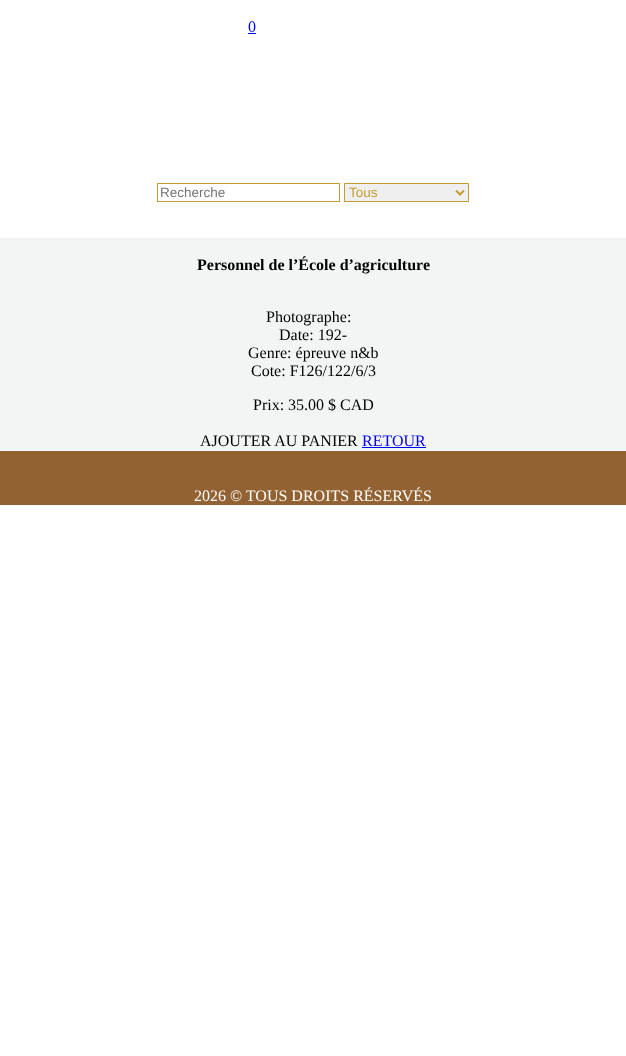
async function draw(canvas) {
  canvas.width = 626;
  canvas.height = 1056;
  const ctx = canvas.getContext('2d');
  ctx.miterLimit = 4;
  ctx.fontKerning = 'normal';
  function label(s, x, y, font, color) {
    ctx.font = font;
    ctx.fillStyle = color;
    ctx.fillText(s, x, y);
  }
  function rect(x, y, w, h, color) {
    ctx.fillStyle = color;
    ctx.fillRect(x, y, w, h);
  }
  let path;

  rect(0, 0, 626, 1056, '#fff');
  label('0', 248, 32, '16px Liberation Serif', '#00e');
  rect(248, 33, 8, 1, '#00e');
  ctx.strokeStyle = '#c69c30';
  ctx.strokeRect(157.5, 183.5, 182, 18);
  label('Recherche', 160, 197, '13.5px Liberation Sans', '#757575');
  ctx.fillStyle = '#efefef';
  ctx.beginPath();
  ctx.rect(344.5, 183.5, 124, 18);
  ctx.fill();
  ctx.stroke();
  path = new Path2D('M456 190.5L460 194.5L464 190.5');
  ctx.lineWidth = 2;
  ctx.stroke(path);
  label('Tous', 349, 197, '13.5px Liberation Sans', '#c69c30');
  rect(0, 238, 626, 212, '#f3f5f5');
  label('Personnel de l’École d’agriculture', 197, 270, 'bold 16px Liberation Serif', '#000');
  label('Photographe:', 266, 322, '16px Liberation Serif', '#000');
  label('Date: 192-', 279, 340, '16px Liberation Serif', '#000');
  label('Genre: épreuve n&b', 248, 358, '16px Liberation Serif', '#000');
  label('Cote: F126/122/6/3', 251, 376, '16px Liberation Serif', '#000');
  label('Prix: 35.00 $ CAD', 253, 410, '16px Liberation Serif', '#000');
  label('AJOUTER AU PANIER', 200, 446, '16px Liberation Serif', '#000');
  label('RETOUR', 362, 446, '16px Liberation Serif', '#00e');
  rect(362, 447, 64, 1, '#00e');
  rect(0, 451, 626, 54, '#936232');
  label('2026 © TOUS DROITS RÉSERVÉS', 194, 501, '16px Liberation Serif', '#fff');
}

draw(document.querySelector('canvas'));
